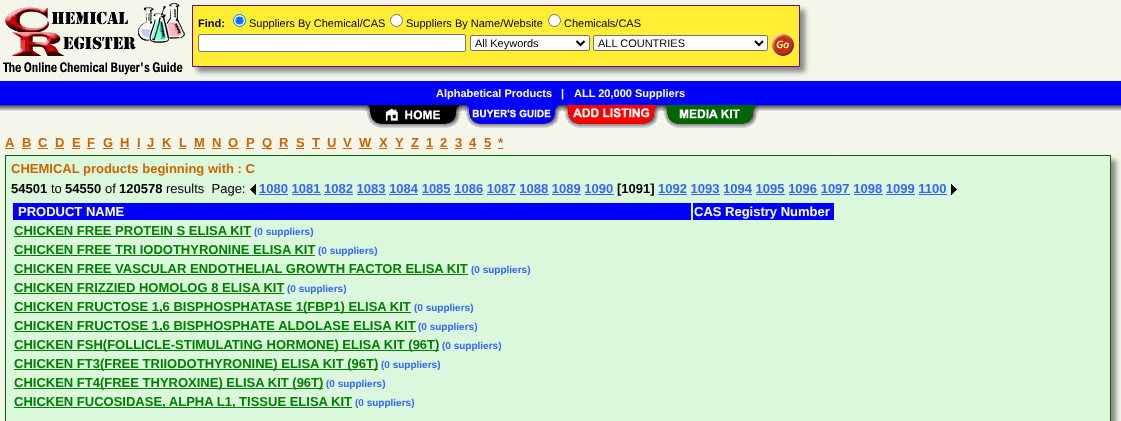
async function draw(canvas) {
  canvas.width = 1121;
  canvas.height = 421;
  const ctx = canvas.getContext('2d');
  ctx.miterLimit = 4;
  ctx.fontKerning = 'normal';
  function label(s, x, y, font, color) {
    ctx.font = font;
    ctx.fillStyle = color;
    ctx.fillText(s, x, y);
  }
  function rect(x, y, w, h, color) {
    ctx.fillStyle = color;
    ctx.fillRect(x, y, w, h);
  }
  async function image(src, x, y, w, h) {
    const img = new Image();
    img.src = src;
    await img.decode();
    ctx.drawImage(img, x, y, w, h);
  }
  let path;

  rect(0, 0, 1121, 421, '#f3f6e9');
  await image('assets/img1.png', 3, 3, 182, 72);
  ctx.fillStyle = '#888';
  ctx.filter = 'blur(2.5px)';
  ctx.beginPath();
  ctx.rect(197, 10, 608, 62);
  ctx.fill();
  ctx.filter = 'none';
  ctx.fillStyle = '#ffee31';
  ctx.beginPath();
  ctx.rect(192.5, 5.5, 607, 61);
  ctx.fill();
  ctx.strokeStyle = '#800080';
  ctx.stroke();
  label('Find:', 198, 27, 'bold 11px Liberation Sans', '#000');
  ctx.fillStyle = '#fff';
  ctx.beginPath();
  ctx.arc(239.5, 20.5, 6, 0, 2 * Math.PI);
  ctx.fill();
  ctx.strokeStyle = '#0075ff';
  ctx.stroke();
  ctx.fillStyle = '#0075ff';
  ctx.beginPath();
  ctx.arc(239.5, 20.5, 4, 0, 2 * Math.PI);
  ctx.fill();
  label('Suppliers By Chemical/CAS', 249, 27, '11px Liberation Sans', '#000');
  ctx.fillStyle = '#fff';
  ctx.beginPath();
  ctx.arc(396.5, 20.5, 6, 0, 2 * Math.PI);
  ctx.fill();
  ctx.strokeStyle = '#767676';
  ctx.stroke();
  label('Suppliers By Name/Website', 406, 27, '11px Liberation Sans', '#000');
  ctx.fillStyle = '#fff';
  ctx.beginPath();
  ctx.arc(554.5, 20.5, 6, 0, 2 * Math.PI);
  ctx.fill();
  ctx.stroke();
  label('Chemicals/CAS', 564, 27, '11px Liberation Sans', '#000');
  ctx.fillStyle = '#fff';
  ctx.beginPath();
  ctx.roundRect(198.5, 34.5, 267, 17, 1.5);
  ctx.fill();
  ctx.stroke();
  ctx.beginPath();
  ctx.roundRect(470.5, 35.5, 119, 15, 1.5);
  ctx.fill();
  ctx.stroke();
  path = new Path2D('M576.5 41L580.5 45L584.5 41');
  ctx.strokeStyle = '#000';
  ctx.lineWidth = 2;
  ctx.stroke(path);
  label('All Keywords', 475, 47, '11px Liberation Sans', '#000');
  ctx.fillStyle = '#fff';
  ctx.beginPath();
  ctx.roundRect(593.5, 35.5, 174, 15, 1.5);
  ctx.fill();
  ctx.strokeStyle = '#767676';
  ctx.lineWidth = 1;
  ctx.stroke();
  path = new Path2D('M755 41L759 45L763 41');
  ctx.strokeStyle = '#000';
  ctx.lineWidth = 2;
  ctx.stroke(path);
  label('ALL COUNTRIES', 598, 47, '11px Liberation Sans', '#000');
  await image('assets/img2.png', 772, 34, 22, 22);
  rect(0, 81, 1121, 24, '#00f');
  label('Alphabetical Products', 436, 97, 'bold 11px Liberation Sans', '#fff');
  label('|', 561, 97, 'bold 11px Liberation Sans', '#fff');
  label('ALL 20,000 Suppliers', 574, 97, 'bold 11px Liberation Sans', '#fff');
  await image('assets/img3.png', 0, 105, 1121, 7);
  await image('assets/img4.png', 363, 105, 99, 24);
  await image('assets/img5.png', 462, 105, 99, 24);
  await image('assets/img6.png', 561, 105, 99, 24);
  await image('assets/img7.png', 660, 105, 99, 24);
  label('A', 5, 147, 'bold 13px Liberation Sans', '#c60');
  rect(5, 148, 9, 1, '#c60');
  label('B', 22, 147, 'bold 13px Liberation Sans', '#c60');
  rect(22, 148, 9, 1, '#c60');
  label('C', 38, 147, 'bold 13px Liberation Sans', '#c60');
  rect(38, 148, 10, 1, '#c60');
  label('D', 55, 147, 'bold 13px Liberation Sans', '#c60');
  rect(55, 148, 9, 1, '#c60');
  label('E', 72, 147, 'bold 13px Liberation Sans', '#c60');
  rect(72, 148, 8, 1, '#c60');
  label('F', 87, 147, 'bold 13px Liberation Sans', '#c60');
  rect(87, 148, 8, 1, '#c60');
  label('G', 103, 147, 'bold 13px Liberation Sans', '#c60');
  rect(103, 148, 10, 1, '#c60');
  label('H', 120, 147, 'bold 13px Liberation Sans', '#c60');
  rect(120, 148, 9, 1, '#c60');
  label('I', 137, 147, 'bold 13px Liberation Sans', '#c60');
  rect(137, 148, 3, 1, '#c60');
  label('J', 147, 147, 'bold 13px Liberation Sans', '#c60');
  rect(147, 148, 8, 1, '#c60');
  label('K', 162, 147, 'bold 13px Liberation Sans', '#c60');
  rect(162, 148, 9, 1, '#c60');
  label('L', 179, 147, 'bold 13px Liberation Sans', '#c60');
  rect(179, 148, 7, 1, '#c60');
  label('M', 194, 147, 'bold 13px Liberation Sans', '#c60');
  rect(194, 148, 11, 1, '#c60');
  label('N', 212, 147, 'bold 13px Liberation Sans', '#c60');
  rect(212, 148, 9, 1, '#c60');
  label('O', 228, 147, 'bold 13px Liberation Sans', '#c60');
  rect(228, 148, 11, 1, '#c60');
  label('P', 246, 147, 'bold 13px Liberation Sans', '#c60');
  rect(246, 148, 8, 1, '#c60');
  rect(262, 148, 10, 1, '#c60');
  label('Q', 262, 147, 'bold 13px Liberation Sans', '#c60');
  label('R', 279, 147, 'bold 13px Liberation Sans', '#c60');
  rect(279, 148, 9, 1, '#c60');
  label('S', 296, 147, 'bold 13px Liberation Sans', '#c60');
  rect(296, 148, 8, 1, '#c60');
  label('T', 312, 147, 'bold 13px Liberation Sans', '#c60');
  rect(312, 148, 8, 1, '#c60');
  label('U', 327, 147, 'bold 13px Liberation Sans', '#c60');
  rect(327, 148, 9, 1, '#c60');
  label('V', 343, 147, 'bold 13px Liberation Sans', '#c60');
  rect(343, 148, 9, 1, '#c60');
  label('W', 359, 147, 'bold 13px Liberation Sans', '#c60');
  rect(359, 148, 13, 1, '#c60');
  label('X', 379, 147, 'bold 13px Liberation Sans', '#c60');
  rect(379, 148, 8, 1, '#c60');
  label('Y', 395, 147, 'bold 13px Liberation Sans', '#c60');
  rect(395, 148, 8, 1, '#c60');
  label('Z', 411, 147, 'bold 13px Liberation Sans', '#c60');
  rect(411, 148, 8, 1, '#c60');
  label('1', 426, 147, 'bold 13px Liberation Sans', '#c60');
  rect(426, 148, 7, 1, '#c60');
  label('2', 440, 147, 'bold 13px Liberation Sans', '#c60');
  rect(440, 148, 8, 1, '#c60');
  label('3', 455, 147, 'bold 13px Liberation Sans', '#c60');
  rect(455, 148, 7, 1, '#c60');
  label('4', 469, 147, 'bold 13px Liberation Sans', '#c60');
  rect(469, 148, 7, 1, '#c60');
  label('5', 484, 147, 'bold 13px Liberation Sans', '#c60');
  rect(484, 148, 7, 1, '#c60');
  label('*', 498, 147, 'bold 13px Liberation Sans', '#c60');
  rect(498, 148, 5, 1, '#c60');
  ctx.fillStyle = '#888';
  ctx.filter = 'blur(2.5px)';
  ctx.beginPath();
  ctx.rect(10, 160, 1106, 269);
  ctx.fill();
  ctx.filter = 'none';
  ctx.fillStyle = '#dbf7dc';
  ctx.beginPath();
  ctx.rect(5.5, 155.5, 1105, 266);
  ctx.fill();
  ctx.strokeStyle = '#060';
  ctx.lineWidth = 1;
  ctx.stroke();
  label('CHEMICAL products beginning with : C', 11, 173, 'bold 13px Liberation Sans', '#c60');
  label('54501', 11, 193, 'bold 13px Liberation Sans', '#000');
  label('to', 51, 193, '13px Liberation Sans', '#000');
  label('54550', 65, 193, 'bold 13px Liberation Sans', '#000');
  label('of', 105, 193, '13px Liberation Sans', '#000');
  label('120578', 119, 193, 'bold 13px Liberation Sans', '#000');
  label('results  Page:', 166, 193, '13px Liberation Sans', '#000');
  await image('assets/img8.png', 250, 184, 6, 11);
  label('1080 1081 1082 1083 1084 1085 1086 1087 1088 1089 1090', 259, 193, 'bold 13px Liberation Sans', '#36f');
  rect(259, 194, 29, 1, '#36f');
  label('[1091]', 617, 193, 'bold 13px Liberation Sans', '#000');
  label('1092 1093 1094 1095 1096 1097 1098 1099 1100', 658, 193, 'bold 13px Liberation Sans', '#36f');
  rect(658, 194, 29, 1, '#36f');
  await image('assets/img9.png', 951, 184, 6, 11);
  rect(292, 194, 29, 1, '#36f');
  rect(324, 194, 29, 1, '#36f');
  rect(357, 194, 29, 1, '#36f');
  rect(389, 194, 29, 1, '#36f');
  rect(422, 194, 29, 1, '#36f');
  rect(454, 194, 29, 1, '#36f');
  rect(487, 194, 29, 1, '#36f');
  rect(520, 194, 29, 1, '#36f');
  rect(552, 194, 29, 1, '#36f');
  rect(585, 194, 29, 1, '#36f');
  rect(691, 194, 29, 1, '#36f');
  rect(724, 194, 28, 1, '#36f');
  rect(756, 194, 29, 1, '#36f');
  rect(789, 194, 29, 1, '#36f');
  rect(821, 194, 29, 1, '#36f');
  rect(854, 194, 29, 1, '#36f');
  rect(886, 194, 29, 1, '#36f');
  rect(919, 194, 28, 1, '#36f');
  rect(13, 203, 678, 17, '#00f');
  label('PRODUCT NAME', 18, 216, 'bold 13px Liberation Sans', '#fff');
  rect(693, 203, 141, 17, '#00f');
  label('CAS Registry Number', 694, 216, 'bold 13px Liberation Sans', '#fff');
  label('CHICKEN FREE PROTEIN S ELISA KIT', 14, 235, 'bold 13px Liberation Sans', '#008000');
  rect(14, 236, 237, 1, '#008000');
  label('(0 suppliers)', 254, 235, 'bold 10px Liberation Sans', '#36f');
  label('CHICKEN FREE TRI IODOTHYRONINE ELISA KIT', 14, 254, 'bold 13px Liberation Sans', '#008000');
  rect(14, 255, 301, 1, '#008000');
  label('(0 suppliers)', 318, 254, 'bold 10px Liberation Sans', '#36f');
  label('CHICKEN FREE VASCULAR ENDOTHELIAL GROWTH FACTOR ELISA KIT', 14, 273, 'bold 13px Liberation Sans', '#008000');
  rect(14, 274, 454, 1, '#008000');
  label('(0 suppliers)', 471, 273, 'bold 10px Liberation Sans', '#36f');
  label('CHICKEN FRIZZIED HOMOLOG 8 ELISA KIT', 14, 292, 'bold 13px Liberation Sans', '#008000');
  rect(14, 293, 270, 1, '#008000');
  label('(0 suppliers)', 287, 292, 'bold 10px Liberation Sans', '#36f');
  rect(14, 312, 397, 1, '#008000');
  label('CHICKEN FRUCTOSE 1,6 BISPHOSPHATASE 1(FBP1) ELISA KIT', 14, 311, 'bold 13px Liberation Sans', '#008000');
  label('(0 suppliers)', 414, 311, 'bold 10px Liberation Sans', '#36f');
  rect(14, 331, 402, 1, '#008000');
  label('CHICKEN FRUCTOSE 1,6 BISPHOSPHATE ALDOLASE ELISA KIT', 14, 330, 'bold 13px Liberation Sans', '#008000');
  label('(0 suppliers)', 418, 330, 'bold 10px Liberation Sans', '#36f');
  rect(14, 350, 425, 1, '#008000');
  label('CHICKEN FSH(FOLLICLE-STIMULATING HORMONE) ELISA KIT (96T)', 14, 349, 'bold 13px Liberation Sans', '#008000');
  label('(0 suppliers)', 442, 349, 'bold 10px Liberation Sans', '#36f');
  rect(14, 369, 364, 1, '#008000');
  label('CHICKEN FT3(FREE TRIIODOTHYRONINE) ELISA KIT (96T)', 14, 368, 'bold 13px Liberation Sans', '#008000');
  label('(0 suppliers)', 381, 368, 'bold 10px Liberation Sans', '#36f');
  rect(14, 388, 309, 1, '#008000');
  label('CHICKEN FT4(FREE THYROXINE) ELISA KIT (96T)', 14, 387, 'bold 13px Liberation Sans', '#008000');
  label('(0 suppliers)', 326, 387, 'bold 10px Liberation Sans', '#36f');
  rect(14, 407, 338, 1, '#008000');
  label('CHICKEN FUCOSIDASE, ALPHA L1, TISSUE ELISA KIT', 14, 406, 'bold 13px Liberation Sans', '#008000');
  label('(0 suppliers)', 355, 406, 'bold 10px Liberation Sans', '#36f');
}

draw(document.querySelector('canvas'));
